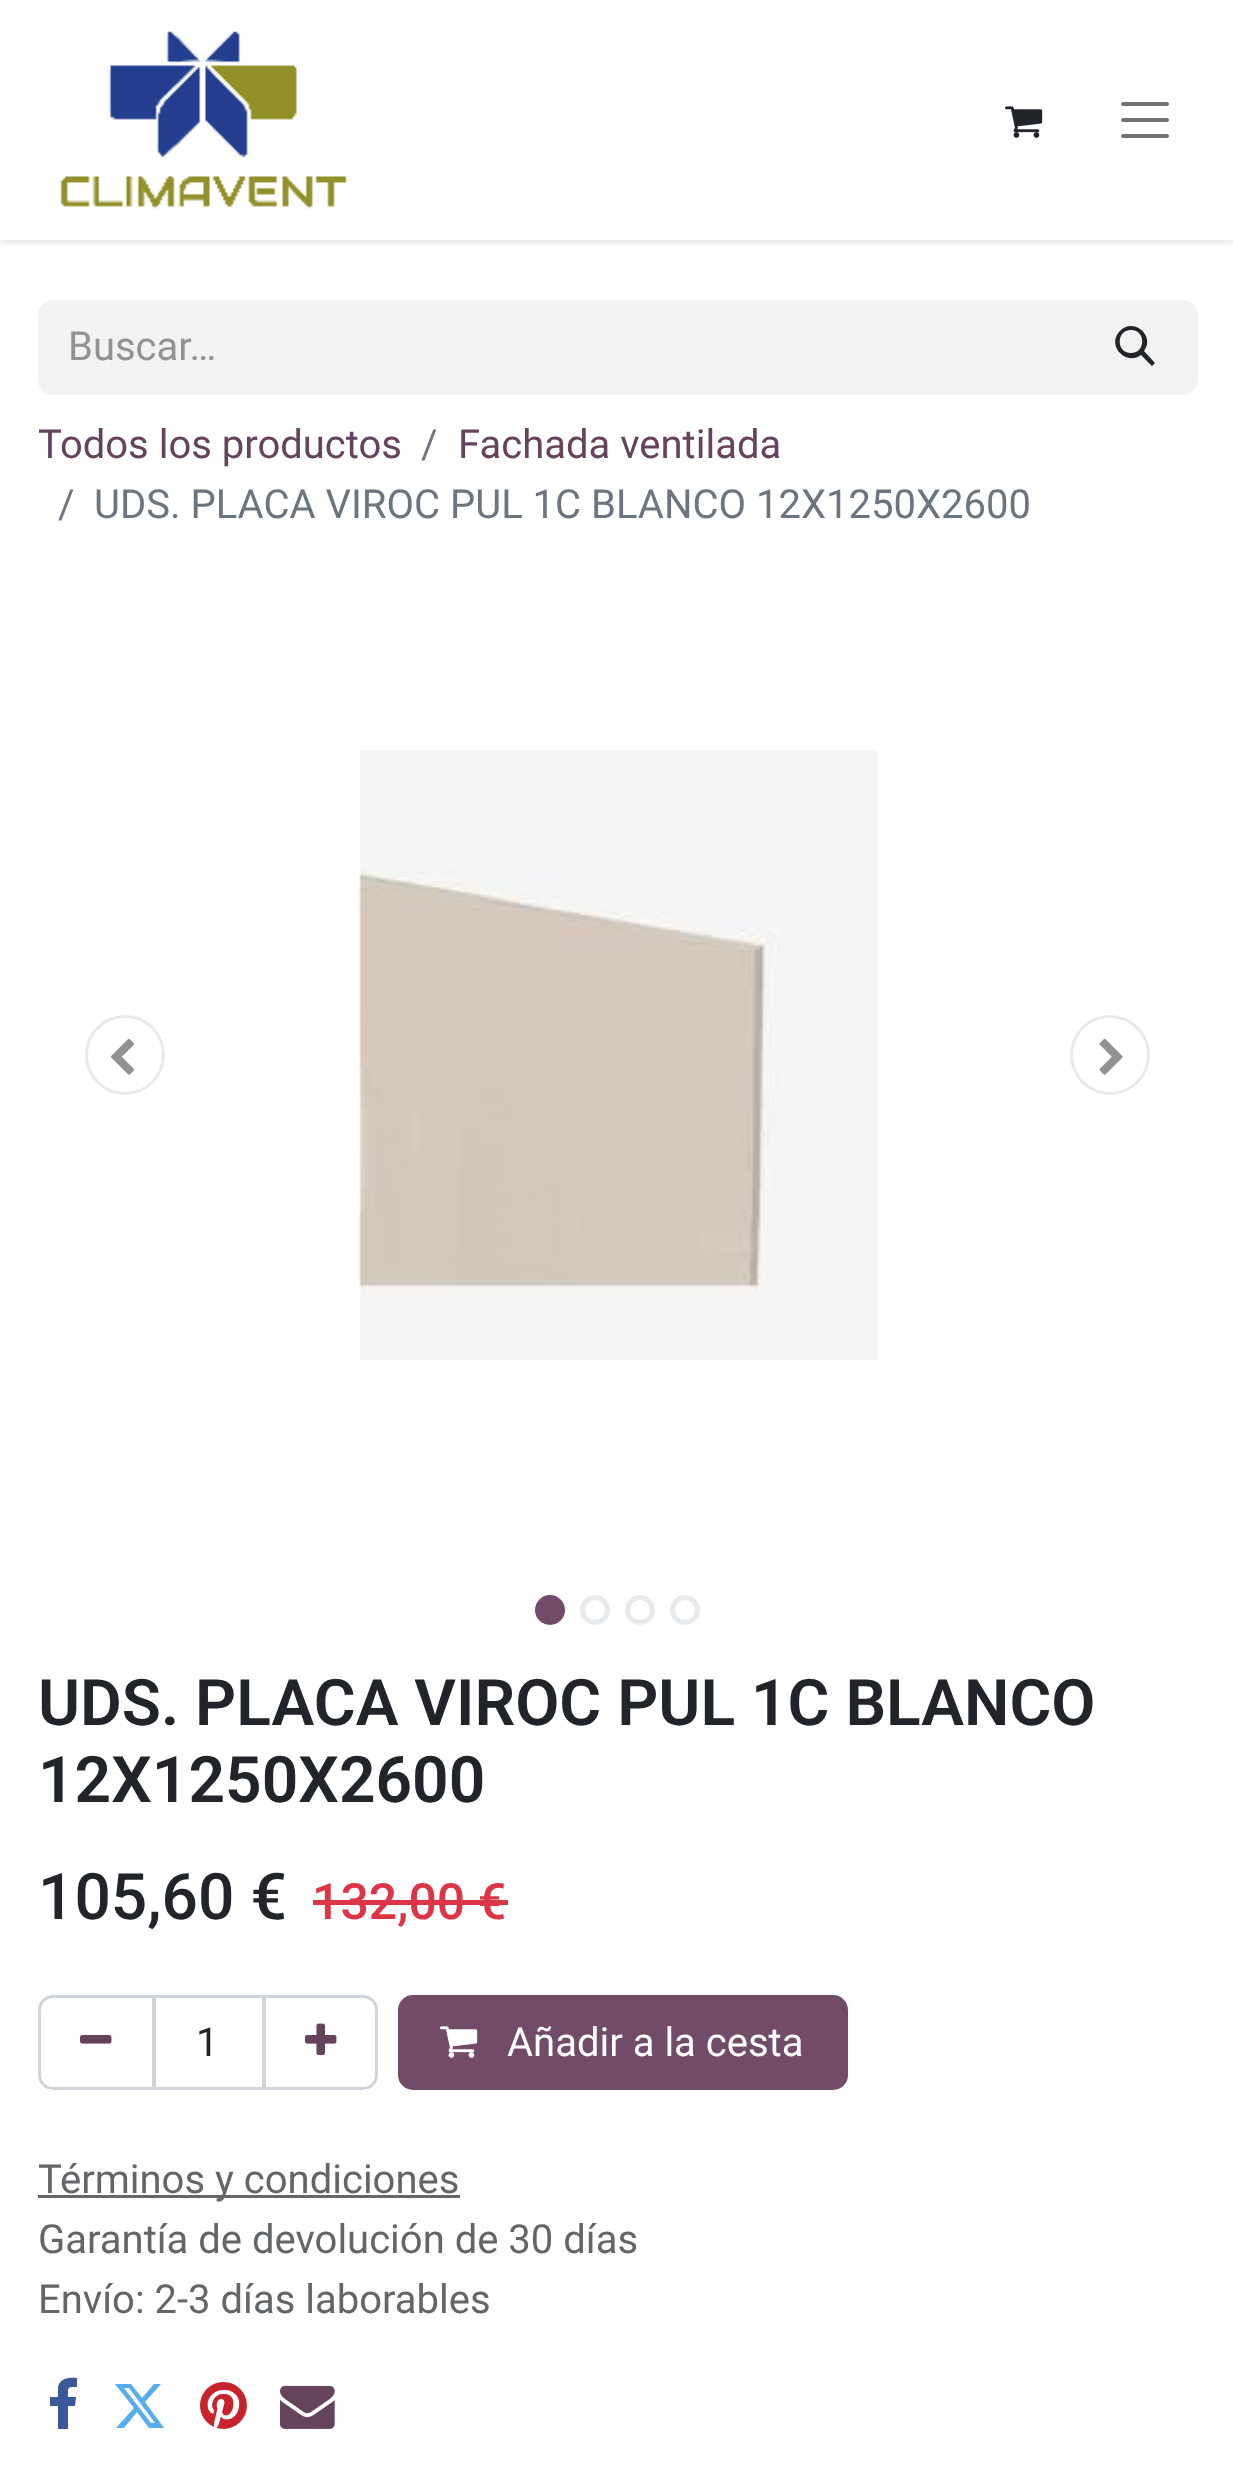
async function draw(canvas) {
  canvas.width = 1233;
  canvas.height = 2467;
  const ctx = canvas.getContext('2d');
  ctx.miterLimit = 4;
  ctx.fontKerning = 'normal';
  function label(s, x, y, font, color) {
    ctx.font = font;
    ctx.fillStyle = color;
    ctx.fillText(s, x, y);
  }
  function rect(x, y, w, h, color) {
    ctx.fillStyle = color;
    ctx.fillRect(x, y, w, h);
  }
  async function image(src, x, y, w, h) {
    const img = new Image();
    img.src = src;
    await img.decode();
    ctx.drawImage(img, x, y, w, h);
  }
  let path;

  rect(0, 0, 1233, 2467, '#fff');
  ctx.save();
  ctx.beginPath();
  ctx.rect(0, 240, 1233, 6);
  ctx.clip();
  ctx.fillStyle = '#0000001a';
  ctx.filter = 'blur(4px)';
  ctx.beginPath();
  ctx.rect(0, 3, 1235, 240);
  ctx.fill();
  ctx.filter = 'none';
  ctx.restore();
  await image('assets/img1.png', 60, 31, 287, 178);
  await image('assets/img2.png', 1005, 106, 38, 32);
  path = new Path2D('M1123 104H1167M1123 120H1167M1123 136H1167');
  ctx.strokeStyle = '#737373';
  ctx.lineWidth = 4;
  ctx.lineCap = 'round';
  ctx.stroke(path);
  ctx.fillStyle = '#f3f2f2';
  ctx.beginPath();
  ctx.roundRect(38, 300, 1037, 95, [15, 0, 0, 15]);
  ctx.fill();
  label('Buscar…', 68, 360, '40px Roboto', '#909294');
  ctx.fillStyle = '#f3f2f2';
  ctx.beginPath();
  ctx.roundRect(1074.5, 301.5, 122, 92, [0, 13.5, 13.5, 0]);
  ctx.fill();
  ctx.strokeStyle = '#f3f2f2';
  ctx.lineWidth = 3;
  ctx.stroke();
  ctx.fillStyle = '#212529';
  path = new Path2D('M1119 332C1132 316 1156 335 1144 351L1155 363L1152 366L1141 355C1126 366 1107 346 1119 332ZM1131 330C1116 330 1116 353 1131 353C1146 353 1146 330 1131 330Z');
  ctx.fill(path);
  label('Todos los productos', 38, 458, '40px Roboto', '#65435c');
  label('/', 421, 458, '40px Roboto', '#6c757d');
  label('Fachada ventilada', 458, 458, '40px Roboto', '#65435c');
  label('/', 58, 518, '40px Roboto', '#6c757d');
  label('UDS. PLACA VIROC PUL 1C BLANCO 12X1250X2600', 94, 518, '40px Roboto', '#6c757d');
  ctx.beginPath();
  ctx.arc(125, 1055, 38.5, 0, 2 * Math.PI);
  ctx.strokeStyle = '#e7eaed';
  ctx.stroke();
  await image('assets/img3.png', 111, 1038, 23, 37);
  await image('assets/img4.png', 359, 750, 519, 610);
  ctx.beginPath();
  ctx.arc(1110, 1055, 38.5, 0, 2 * Math.PI);
  ctx.stroke();
  await image('assets/img5.png', 1099, 1038, 24, 37);
  ctx.fillStyle = '#714b67';
  ctx.beginPath();
  ctx.arc(550, 1610, 12.5, 0, 2 * Math.PI);
  ctx.fill();
  ctx.strokeStyle = '#714b67';
  ctx.lineWidth = 5;
  ctx.stroke();
  ctx.beginPath();
  ctx.arc(595, 1610, 12.5, 0, 2 * Math.PI);
  ctx.strokeStyle = '#e7eaed';
  ctx.stroke();
  ctx.beginPath();
  ctx.arc(640, 1610, 12.5, 0, 2 * Math.PI);
  ctx.stroke();
  ctx.beginPath();
  ctx.arc(685, 1610, 12.5, 0, 2 * Math.PI);
  ctx.stroke();
  label('UDS. PLACA VIROC PUL 1C BLANCO', 38, 1725, '600 64.1px Roboto', '#212529');
  label('12X1250X2600', 38, 1802, '600 64.1px Roboto', '#212529');
  label('105,60 €', 38, 1919, '500 64.1px Roboto', '#212529');
  label('132,00 €', 312, 1919, '500 50px Roboto', '#dc3545');
  rect(313, 1900, 195, 5, '#dc3545');
  ctx.strokeStyle = '#ced4da';
  ctx.lineWidth = 3;
  ctx.strokeRect(154.5, 1996.5, 109, 92);
  ctx.beginPath();
  ctx.roundRect(39.5, 1996.5, 114, 92, [13.5, 0, 0, 13.5]);
  ctx.stroke();
  await image('assets/img6.png', 80, 2035, 32, 9);
  label('1', 196, 2056, '40px Roboto', '#212529');
  ctx.beginPath();
  ctx.roundRect(264.5, 1996.5, 112, 92, [0, 13.5, 13.5, 0]);
  ctx.stroke();
  await image('assets/img7.png', 305, 2023, 32, 32);
  ctx.fillStyle = '#714b67';
  ctx.beginPath();
  ctx.roundRect(399.5, 1996.5, 447, 92, 13.5);
  ctx.fill();
  ctx.strokeStyle = '#714b67';
  ctx.stroke();
  await image('assets/img8.png', 440, 2026, 38, 32);
  label('Añadir a la cesta', 507, 2056, '40px Roboto', '#fff');
  rect(38, 2195, 422, 3, '#646669');
  label('Términos y condiciones', 38, 2193, '40px Roboto', '#636669');
  label('Garantía de devolución de 30 días', 38, 2253, '40px Roboto', '#636669');
  label('Envío: 2-3 días laborables', 38, 2313, '40px Roboto', '#636669');
  ctx.fillStyle = '#3b5999';
  path = new Path2D('M77 2378V2387C67 2387 68 2387 68 2397H76L75 2406H68V2429H58V2406H50V2397H58V2387C60 2378 69 2377 77 2378Z');
  ctx.fill(path);
  ctx.fillStyle = '#55acee';
  path = new Path2D('M154 2384H161L145 2402L164 2428H149L137 2412L124 2428H116L134 2408L115 2384H131L142 2398ZM151 2423H155L129 2388H124Z');
  ctx.fill(path);
  await image('assets/img9.png', 200, 2382, 47, 47);
  await image('assets/img10.png', 280, 2385, 55, 44);
}

draw(document.querySelector('canvas'));
